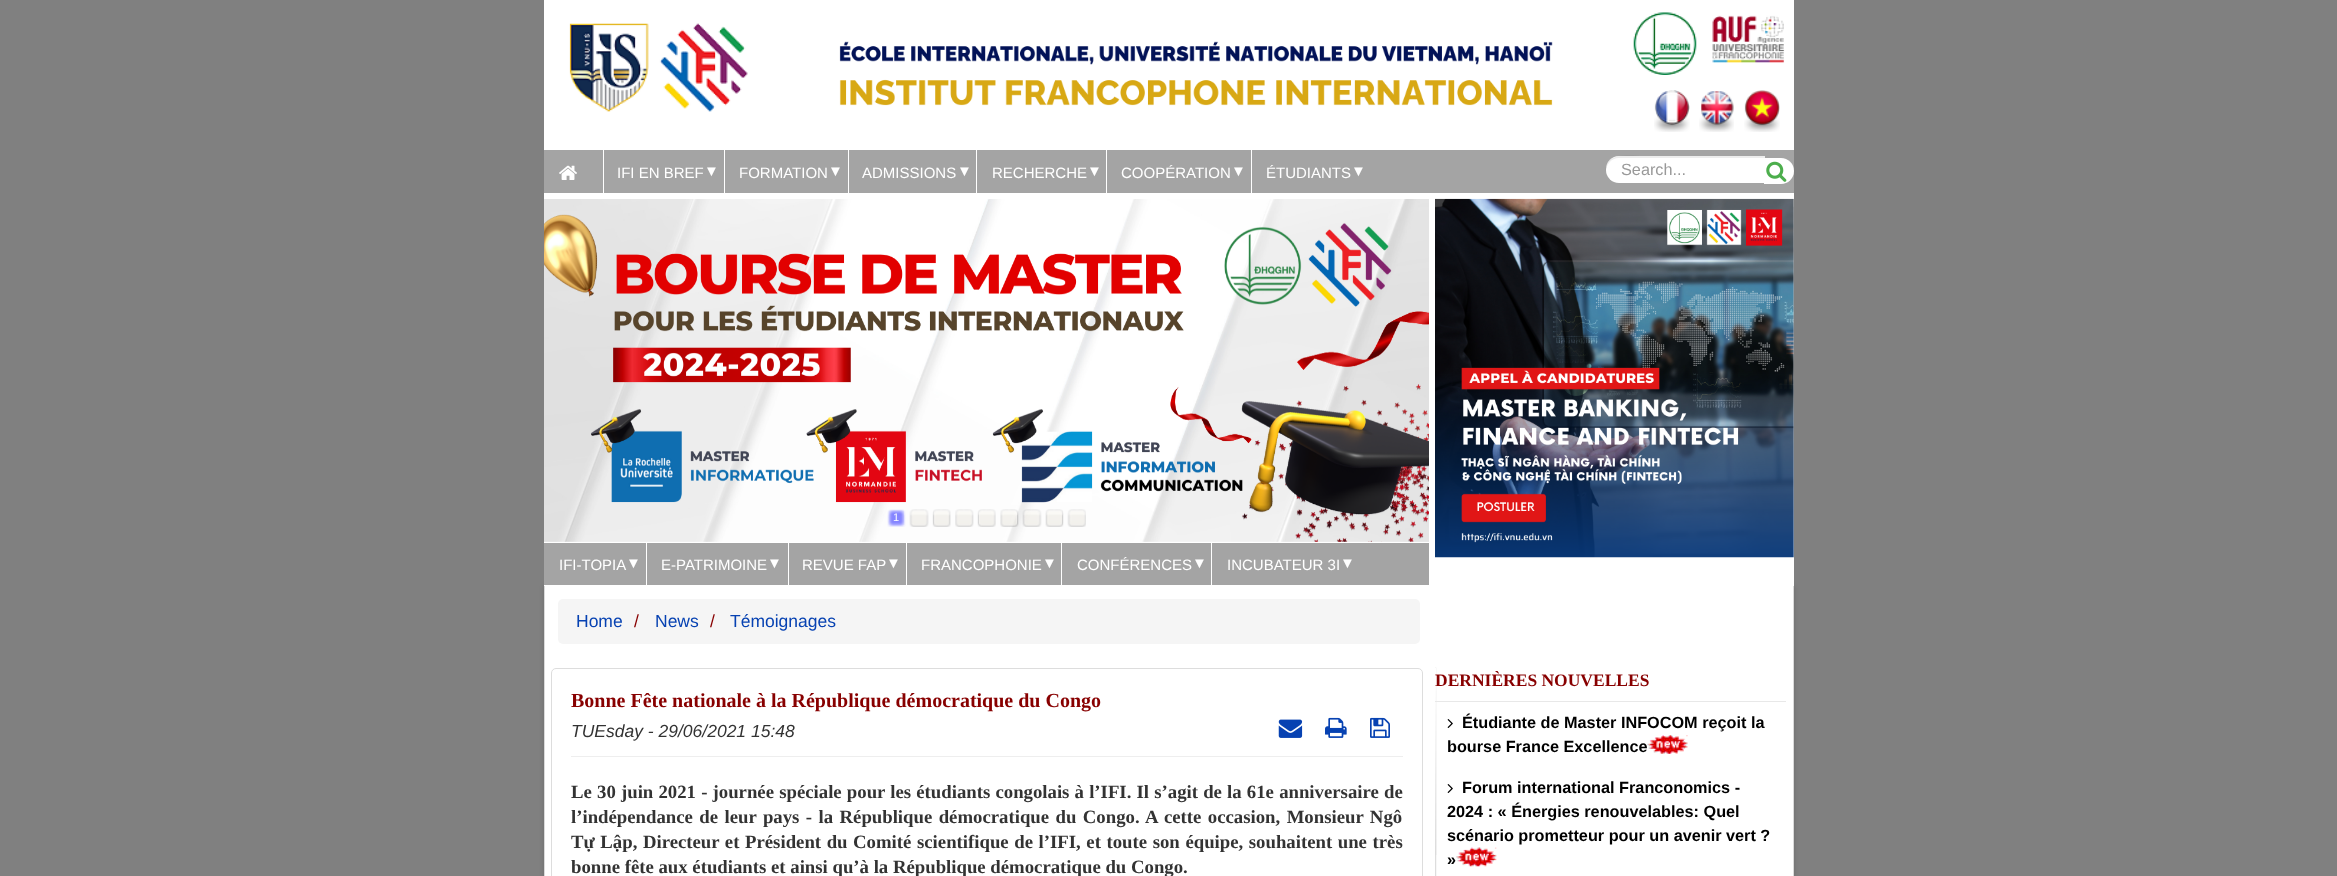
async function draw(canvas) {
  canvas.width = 2337;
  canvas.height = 876;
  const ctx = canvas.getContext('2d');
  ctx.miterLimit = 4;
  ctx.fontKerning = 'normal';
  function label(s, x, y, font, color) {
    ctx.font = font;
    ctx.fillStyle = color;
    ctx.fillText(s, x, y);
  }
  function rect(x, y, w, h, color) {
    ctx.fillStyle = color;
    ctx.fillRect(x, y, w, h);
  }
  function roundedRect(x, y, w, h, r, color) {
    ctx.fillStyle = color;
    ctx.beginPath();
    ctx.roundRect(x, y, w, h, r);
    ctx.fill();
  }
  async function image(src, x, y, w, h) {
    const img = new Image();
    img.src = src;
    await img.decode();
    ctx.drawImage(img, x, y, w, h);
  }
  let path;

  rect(0, 0, 2337, 876, '#808080');
  rect(544, 0, 1250, 150, '#fff');
  await image('assets/img1.png', 569, 23, 179, 89);
  await image('assets/img2.png', 839, 41, 714, 65);
  await image('assets/img3.png', 1633, 12, 64, 63);
  await image('assets/img4.png', 1712, 15, 73, 48);
  await image('assets/img5.png', 1654, 90, 36, 42);
  await image('assets/img6.png', 1699, 91, 35, 41);
  await image('assets/img7.png', 1744, 90, 36, 42);
  rect(544, 150, 1250, 43, '#a4a4a4');
  rect(603, 150, 1, 43, '#fff');
  await image('assets/img8.png', 559, 165, 18, 15);
  rect(724, 150, 1, 43, '#fff');
  label('IFI EN BREF', 617, 178, '15px Liberation Sans', '#fff');
  label('▼', 704, 176, 'italic 15px Liberation Sans', '#fff');
  rect(848, 150, 1, 43, '#fff');
  label('FORMATION', 739, 178, '15px Liberation Sans', '#fff');
  label('▼', 828, 176, 'italic 15px Liberation Sans', '#fff');
  rect(976, 150, 1, 43, '#fff');
  label('ADMISSIONS', 862, 178, '15px Liberation Sans', '#fff');
  label('▼', 957, 176, 'italic 15px Liberation Sans', '#fff');
  rect(1106, 150, 1, 43, '#fff');
  label('RECHERCHE', 992, 178, '15px Liberation Sans', '#fff');
  label('▼', 1087, 176, 'italic 15px Liberation Sans', '#fff');
  rect(1251, 150, 1, 43, '#fff');
  label('COOPÉRATION', 1121, 178, '15px Liberation Sans', '#fff');
  label('▼', 1231, 176, 'italic 15px Liberation Sans', '#fff');
  label('ÉTUDIANTS', 1266, 178, '15px Liberation Sans', '#fff');
  label('▼', 1351, 176, 'italic 15px Liberation Sans', '#fff');
  ctx.beginPath();
  ctx.roundRect(1764, 158, 30, 26, [0, 13, 13, 0]);
  ctx.fill();
  ctx.beginPath();
  ctx.roundRect(1606, 156, 159, 27, [13, 0, 0, 13]);
  ctx.fill();
  ctx.fillStyle = '#00000012';
  path = new Path2D('M1619 158H1765V156H1643C1632 156 1603 151 1606 172C1606 165 1611 158 1619 158Z');
  ctx.fill(path);
  label('Search...', 1621, 175, '16.25px Liberation Sans', '#999');
  await image('assets/img9.png', 1766, 161, 21, 21);
  ctx.fillStyle = '#00000026';
  ctx.filter = 'blur(2.5px)';
  ctx.beginPath();
  ctx.rect(544, 586, 1250, 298);
  ctx.fill();
  ctx.filter = 'none';
  rect(544, 193, 1250, 393, '#fff');
  await image('assets/img10.png', 544, 199, 885, 343);
  await image('assets/img11.png', 887, 509, 19, 18);
  label('1', 893, 521, '11px Liberation Sans', '#fff');
  await image('assets/img12.png', 909, 509, 20, 18);
  await image('assets/img13.png', 932, 509, 19, 18);
  await image('assets/img14.png', 955, 509, 19, 18);
  await image('assets/img15.png', 977, 509, 19, 18);
  await image('assets/img16.png', 1000, 509, 19, 18);
  await image('assets/img17.png', 1022, 509, 20, 18);
  await image('assets/img18.png', 1045, 509, 19, 18);
  await image('assets/img19.png', 1067, 509, 19, 18);
  rect(544, 543, 885, 42, '#a4a4a4');
  rect(646, 543, 1, 42, '#fff');
  label('IFI-TOPIA', 559, 570, '15px Liberation Sans', '#fff');
  label('▼', 626, 568, 'italic 15px Liberation Sans', '#fff');
  rect(788, 543, 1, 42, '#fff');
  label('E-PATRIMOINE', 661, 570, '15px Liberation Sans', '#fff');
  label('▼', 767, 568, 'italic 15px Liberation Sans', '#fff');
  rect(906, 543, 1, 42, '#fff');
  label('REVUE FAP', 802, 570, '15px Liberation Sans', '#fff');
  label('▼', 886, 568, 'italic 15px Liberation Sans', '#fff');
  rect(1061, 543, 1, 42, '#fff');
  label('FRANCOPHONIE', 921, 570, '15px Liberation Sans', '#fff');
  label('▼', 1042, 568, 'italic 15px Liberation Sans', '#fff');
  rect(1211, 543, 1, 42, '#fff');
  label('CONFÉRENCES', 1077, 570, '15px Liberation Sans', '#fff');
  label('▼', 1192, 568, 'italic 15px Liberation Sans', '#fff');
  label('INCUBATEUR 3I', 1227, 570, '15px Liberation Sans', '#fff');
  label('▼', 1340, 568, 'italic 15px Liberation Sans', '#fff');
  await image('assets/img20.png', 1435, 198, 359, 360);
  await image('assets/img21.png', 1793, 199, 1, 359);
  rect(545, 586, 1248, 290, '#fff');
  rect(1793, 586, 1, 290, '#dadada');
  rect(544, 586, 1, 290, '#dadada');
  roundedRect(558, 599, 862, 45, 5, '#f5f5f5');
  label('Home', 576, 627, '17.5px Liberation Sans', '#0742b2');
  label('/', 634, 627, '17.5px Liberation Sans', '#800');
  label('News', 655, 627, '17.5px Liberation Sans', '#0742b2');
  label('/', 710, 627, '17.5px Liberation Sans', '#800');
  label('Témoignages', 730, 627, '17.5px Liberation Sans', '#0742b2');
  ctx.beginPath();
  ctx.roundRect(551.5, 668.5, 871, 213, 4.5);
  ctx.strokeStyle = '#ddd';
  ctx.stroke();
  label('Bonne Fête nationale à la République démocratique du Congo', 571, 707, 'bold 20px Liberation Serif', '#800');
  label('TUEsday - 29/06/2021 15:48', 571, 737, 'italic 17.5px Liberation Sans', '#333');
  await image('assets/img22.png', 1278, 719, 25, 19);
  await image('assets/img23.png', 1325, 717, 22, 21);
  await image('assets/img24.png', 1370, 717, 20, 21);
  rect(571, 756, 832, 1, '#eee');
  ctx.wordSpacing = '0.5px';
  label('Le 30 juin 2021 - journée spéciale pour les étudiants congolais à l’IFI. Il s’agit de la 61e anniversaire de', 571, 798, 'bold 18.75px Liberation Serif', '#333');
  ctx.wordSpacing = '1.75px';
  label('l’indépendance de leur pays - la République démocratique du Congo. A cette occasion, Monsieur Ngô', 571, 823, 'bold 18.75px Liberation Serif', '#333');
  ctx.wordSpacing = '0.9px';
  label('Tự Lập, Directeur et Président du Comité scientifique de l’IFI, et toute son équipe, souhaitent une très', 571, 848, 'bold 18.75px Liberation Serif', '#333');
  ctx.wordSpacing = '0px';
  label('bonne fête aux étudiants et ainsi qu’à la République démocratique du Congo.', 571, 873, 'bold 18.75px Liberation Serif', '#333');
  await image('assets/img25.png', 1435, 667, 2, 209);
  rect(1435, 701, 351, 1, '#e8e8e8');
  label('DERNIÈRES NOUVELLES', 1435, 686, 'bold 17.5px Liberation Serif', '#800');
  await image('assets/img26.png', 1447, 719, 6, 9);
  label('Étudiante de Master INFOCOM reçoit la', 1462, 728, 'bold 16.25px Liberation Sans', '#000');
  label('bourse France Excellence', 1447, 752, 'bold 16.25px Liberation Sans', '#000');
  await image('assets/img27.png', 1647, 735, 41, 19);
  await image('assets/img26.png', 1447, 784, 6, 9);
  label('Forum international Franconomics -', 1462, 793, 'bold 16.25px Liberation Sans', '#000');
  label('2024 : « Énergies renouvelables: Quel', 1447, 817, 'bold 16.25px Liberation Sans', '#000');
  label('scénario prometteur pour un avenir vert ?', 1447, 841, 'bold 16.25px Liberation Sans', '#000');
  label('»', 1447, 865, 'bold 16.25px Liberation Sans', '#000');
  await image('assets/img28.png', 1456, 847, 41, 20);
}

draw(document.querySelector('canvas'));
